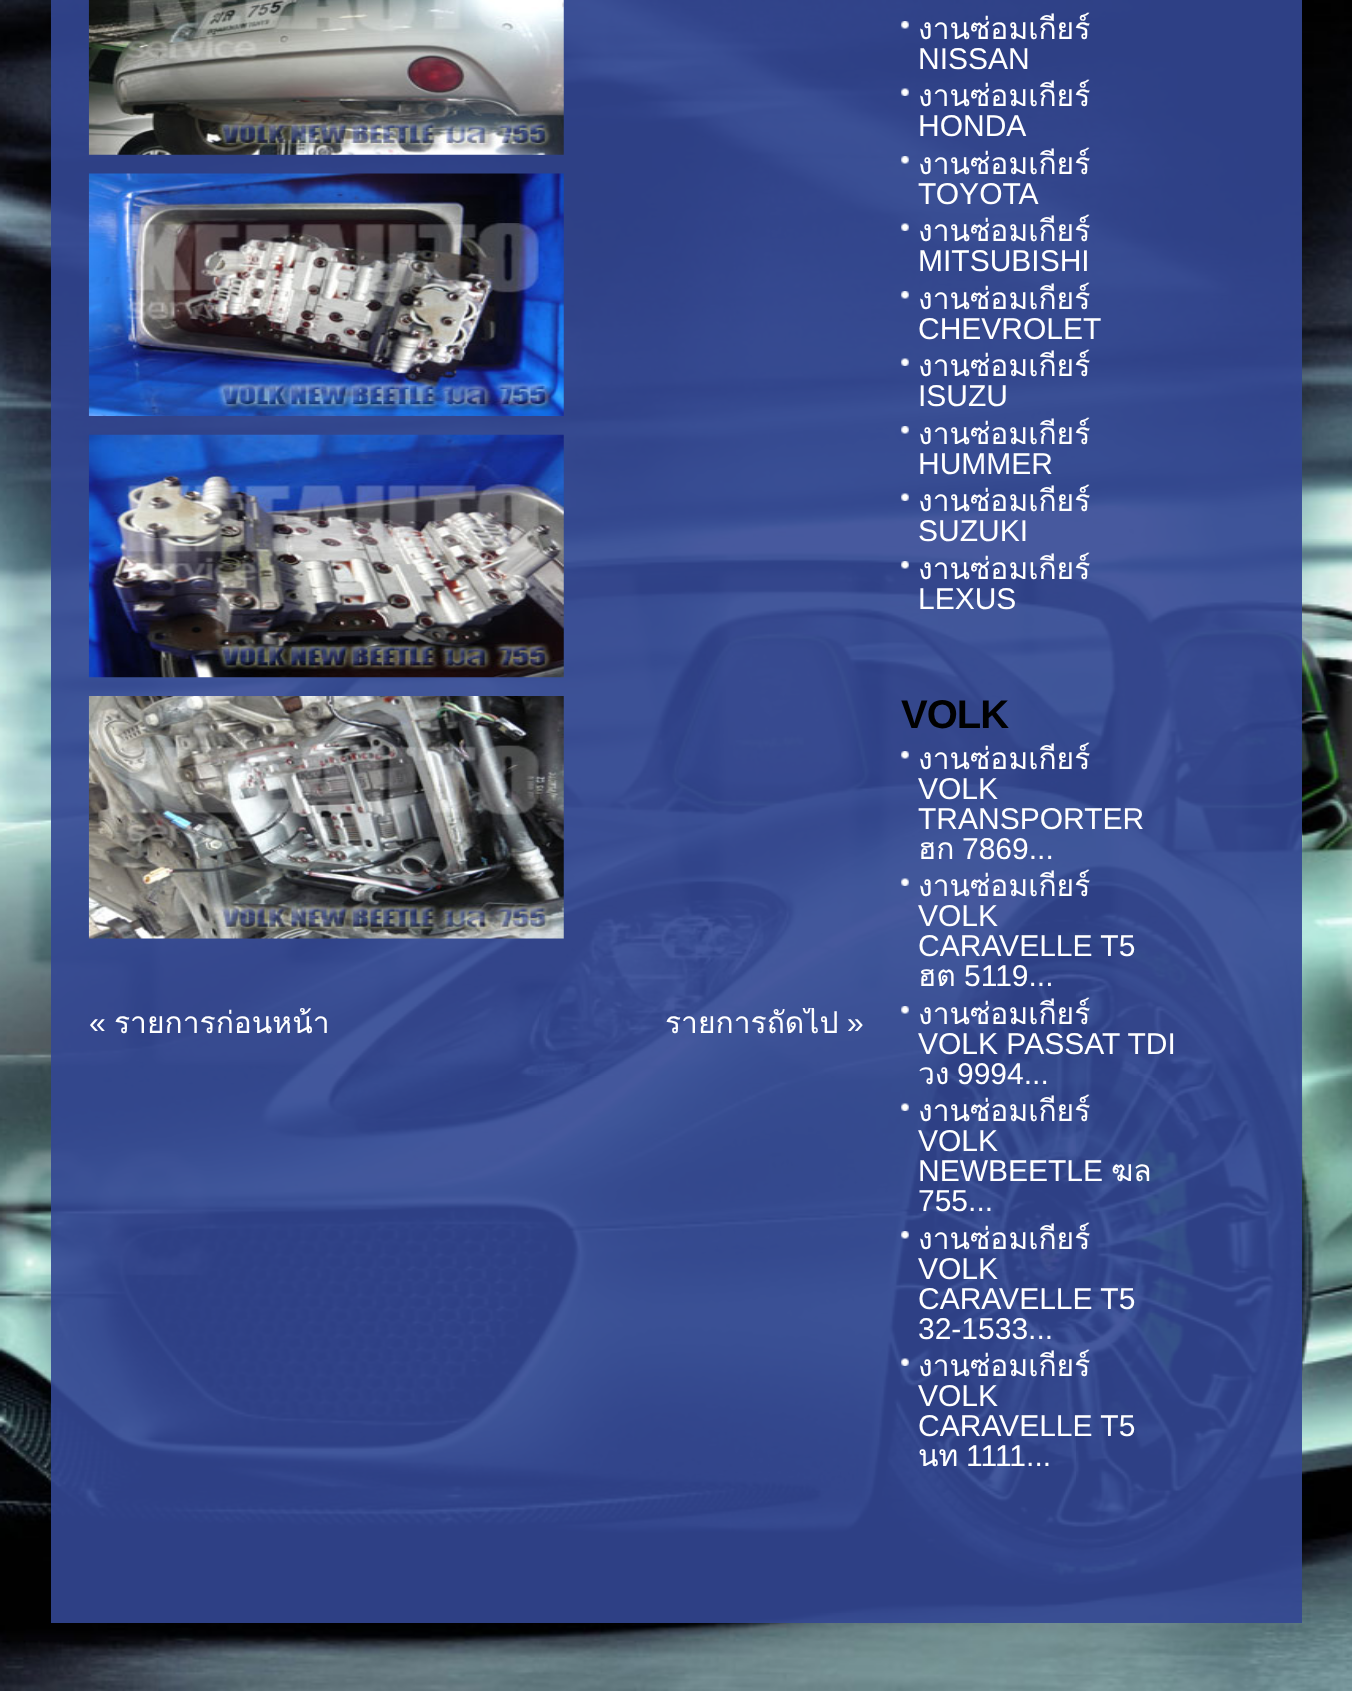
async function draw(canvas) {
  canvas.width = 1352;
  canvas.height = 1691;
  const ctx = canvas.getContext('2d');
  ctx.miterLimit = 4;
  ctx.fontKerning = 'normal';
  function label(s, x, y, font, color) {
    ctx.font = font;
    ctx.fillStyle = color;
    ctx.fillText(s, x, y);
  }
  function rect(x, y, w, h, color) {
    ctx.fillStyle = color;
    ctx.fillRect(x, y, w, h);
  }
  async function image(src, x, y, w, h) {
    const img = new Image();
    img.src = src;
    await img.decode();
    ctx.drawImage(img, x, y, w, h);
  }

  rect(0, 0, 1352, 1691, '#fff');
  await image('assets/img1.png', 0, 0, 1352, 1691);
  rect(51, 0, 1251, 1623, '#334793e6');
  await image('assets/img2.png', 88, 0, 476, 155);
  await image('assets/img3.png', 88, 173, 476, 243);
  await image('assets/img4.png', 88, 434, 476, 244);
  await image('assets/img5.png', 88, 696, 476, 243);
  label('«', 89, 1033, '30px Liberation Sans', '#fff');
  label('รายการก่อนหน้า', 114, 1033, '30px Loma', '#fff');
  ctx.save();
  ctx.beginPath();
  ctx.rect(89, 1008, 775, 30);
  ctx.clip();
  label('รายการถัดไป', 665, 1033, '30px Loma', '#fff');
  ctx.restore();
  label('»', 847, 1033, '30px Liberation Sans', '#fff');
  await image('assets/img6.png', 901, 21, 8, 8);
  label('งานซ่อมเกียร์', 918, 39, '30px Loma', '#fff');
  label('NISSAN', 918, 69, '30px Liberation Sans', '#fff');
  await image('assets/img7.png', 901, 88, 8, 8);
  label('งานซ่อมเกียร์', 918, 106, '30px Loma', '#fff');
  label('HONDA', 918, 136, '30px Liberation Sans', '#fff');
  await image('assets/img8.png', 901, 156, 8, 8);
  label('งานซ่อมเกียร์', 918, 174, '30px Loma', '#fff');
  label('TOYOTA', 918, 204, '30px Liberation Sans', '#fff');
  await image('assets/img9.png', 901, 223, 8, 8);
  label('งานซ่อมเกียร์', 918, 241, '30px Loma', '#fff');
  label('MITSUBISHI', 918, 271, '30px Liberation Sans', '#fff');
  await image('assets/img10.png', 901, 291, 8, 8);
  label('งานซ่อมเกียร์', 918, 309, '30px Loma', '#fff');
  label('CHEVROLET', 918, 339, '30px Liberation Sans', '#fff');
  await image('assets/img11.png', 901, 358, 8, 8);
  label('งานซ่อมเกียร์', 918, 376, '30px Loma', '#fff');
  label('ISUZU', 918, 406, '30px Liberation Sans', '#fff');
  await image('assets/img12.png', 901, 426, 8, 8);
  label('งานซ่อมเกียร์', 918, 444, '30px Loma', '#fff');
  label('HUMMER', 918, 474, '30px Liberation Sans', '#fff');
  await image('assets/img13.png', 901, 493, 8, 8);
  label('งานซ่อมเกียร์', 918, 511, '30px Loma', '#fff');
  label('SUZUKI', 918, 541, '30px Liberation Sans', '#fff');
  await image('assets/img14.png', 901, 561, 8, 8);
  label('งานซ่อมเกียร์', 918, 579, '30px Loma', '#fff');
  label('LEXUS', 918, 609, '30px Liberation Sans', '#fff');
  ctx.letterSpacing = '-1px';
  label('VOLK', 901, 728, 'bold 40px Liberation Sans', '#000');
  await image('assets/img15.png', 901, 751, 8, 8);
  ctx.letterSpacing = '0px';
  label('งานซ่อมเกียร์', 918, 769, '30px Loma', '#fff');
  label('VOLK', 918, 799, '30px Liberation Sans', '#fff');
  label('TRANSPORTER', 918, 829, '30px Liberation Sans', '#fff');
  label('ฮก', 918, 859, '30px Loma', '#fff');
  label('7869...', 962, 859, '30px Liberation Sans', '#fff');
  await image('assets/img16.png', 901, 878, 8, 8);
  label('งานซ่อมเกียร์', 918, 896, '30px Loma', '#fff');
  label('VOLK', 918, 926, '30px Liberation Sans', '#fff');
  label('CARAVELLE T5', 918, 956, '30px Liberation Sans', '#fff');
  label('ฮต', 918, 986, '30px Loma', '#fff');
  label('5119...', 964, 986, '30px Liberation Sans', '#fff');
  await image('assets/img17.png', 901, 1006, 8, 8);
  label('งานซ่อมเกียร์', 918, 1024, '30px Loma', '#fff');
  label('VOLK PASSAT TDI', 918, 1054, '30px Liberation Sans', '#fff');
  label('วง', 918, 1084, '30px Loma', '#fff');
  label('9994...', 957, 1084, '30px Liberation Sans', '#fff');
  await image('assets/img18.png', 901, 1103, 8, 8);
  label('งานซ่อมเกียร์', 918, 1121, '30px Loma', '#fff');
  label('VOLK', 918, 1151, '30px Liberation Sans', '#fff');
  label('NEWBEETLE', 918, 1181, '30px Liberation Sans', '#fff');
  label('ฆล', 1111, 1181, '30px Loma', '#fff');
  label('755...', 918, 1211, '30px Liberation Sans', '#fff');
  await image('assets/img19.png', 901, 1231, 8, 8);
  label('งานซ่อมเกียร์', 918, 1249, '30px Loma', '#fff');
  label('VOLK', 918, 1279, '30px Liberation Sans', '#fff');
  label('CARAVELLE T5', 918, 1309, '30px Liberation Sans', '#fff');
  label('32-1533...', 918, 1339, '30px Liberation Sans', '#fff');
  await image('assets/img20.png', 901, 1358, 8, 8);
  label('งานซ่อมเกียร์', 918, 1376, '30px Loma', '#fff');
  label('VOLK', 918, 1406, '30px Liberation Sans', '#fff');
  label('CARAVELLE T5', 918, 1436, '30px Liberation Sans', '#fff');
  label('นท', 918, 1466, '30px Loma', '#fff');
  label('1111...', 966, 1466, '30px Liberation Sans', '#fff');
}

draw(document.querySelector('canvas'));
